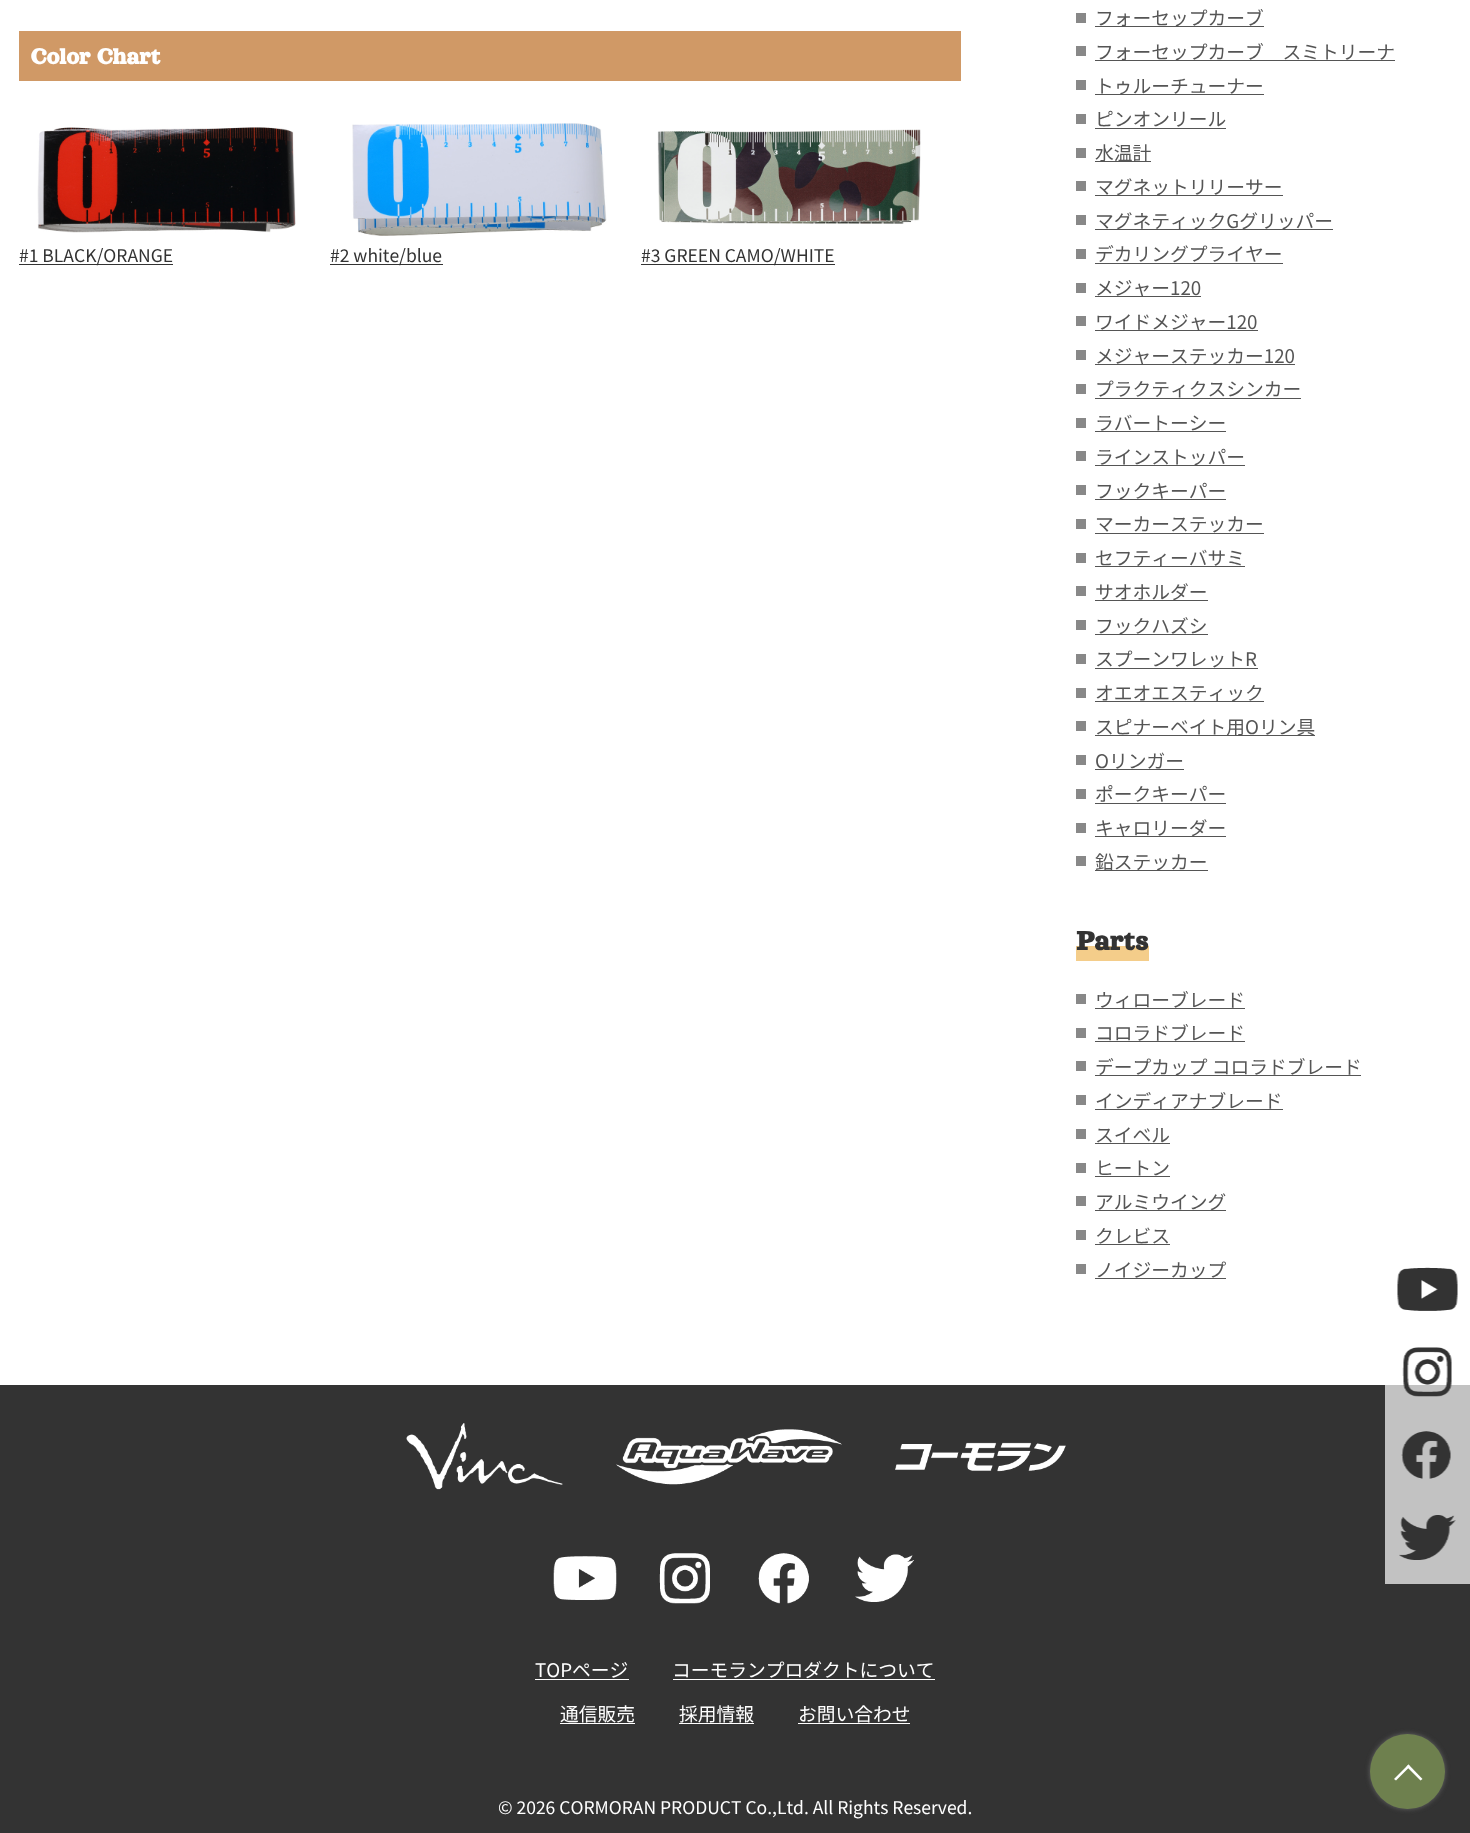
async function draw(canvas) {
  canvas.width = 1470;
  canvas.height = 1833;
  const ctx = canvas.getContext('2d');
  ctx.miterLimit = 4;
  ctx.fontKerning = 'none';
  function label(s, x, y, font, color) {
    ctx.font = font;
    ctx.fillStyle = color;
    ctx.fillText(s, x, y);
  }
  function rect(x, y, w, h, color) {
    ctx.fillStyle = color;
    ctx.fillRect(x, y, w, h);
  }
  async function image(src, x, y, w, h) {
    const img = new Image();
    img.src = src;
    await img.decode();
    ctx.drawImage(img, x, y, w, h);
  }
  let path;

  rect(0, 0, 1470, 1833, '#fff');
  rect(19, 31, 942, 50, '#d09966');
  label('Color Chart', 31, 64, 'bold 25px Orelega One', '#fff');
  await image('assets/img1.png', 37, 127, 259, 106);
  rect(19, 264, 154, 1, '#333');
  label('#1 BLACK/ORANGE', 19, 262, '17.5px Noto Sans JP', '#333');
  await image('assets/img2.png', 352, 123, 255, 113);
  rect(330, 264, 113, 1, '#333');
  label('#2 white/blue', 330, 262, '17.5px Noto Sans JP', '#333');
  await image('assets/img3.png', 657, 129, 264, 95);
  rect(641, 264, 194, 1, '#333');
  label('#3 GREEN CAMO/WHITE', 641, 262, '17.5px Noto Sans JP', '#333');
  rect(1076, 13, 10, 10, '#888');
  rect(1095, 26, 169, 1, '#555');
  label('フォーセップカーブ', 1095, 25, '18.75px Noto Sans JP', '#555');
  rect(1076, 46, 10, 10, '#888');
  rect(1095, 60, 300, 1, '#555');
  label('フォーセップカーブ　スミトリーナ', 1095, 59, '18.75px Noto Sans JP', '#555');
  rect(1076, 80, 10, 10, '#888');
  rect(1095, 94, 169, 1, '#555');
  label('トゥルーチューナー', 1095, 93, '18.75px Noto Sans JP', '#555');
  rect(1076, 114, 10, 10, '#888');
  label('ピンオンリール', 1095, 126, '18.75px Noto Sans JP', '#555');
  rect(1095, 128, 131, 1, '#555');
  rect(1076, 148, 10, 10, '#888');
  rect(1095, 161, 56, 1, '#555');
  label('水温計', 1095, 160, '18.75px Noto Sans JP', '#555');
  rect(1076, 181, 10, 10, '#888');
  rect(1095, 195, 188, 1, '#555');
  label('マグネットリリーサー', 1095, 194, '18.75px Noto Sans JP', '#555');
  rect(1076, 215, 10, 10, '#888');
  rect(1095, 229, 238, 1, '#555');
  label('マグネティックGグリッパー', 1095, 228, '18.75px Noto Sans JP', '#555');
  rect(1076, 249, 10, 10, '#888');
  label('デカリングプライヤー', 1095, 261, '18.75px Noto Sans JP', '#555');
  rect(1095, 263, 188, 1, '#555');
  rect(1076, 283, 10, 10, '#888');
  rect(1095, 296, 106, 1, '#555');
  label('メジャー120', 1095, 295, '18.75px Noto Sans JP', '#555');
  rect(1076, 316, 10, 10, '#888');
  rect(1095, 330, 163, 1, '#555');
  label('ワイドメジャー120', 1095, 329, '18.75px Noto Sans JP', '#555');
  rect(1076, 350, 10, 10, '#888');
  rect(1095, 364, 200, 1, '#555');
  label('メジャーステッカー120', 1095, 363, '18.75px Noto Sans JP', '#555');
  rect(1076, 384, 10, 10, '#888');
  label('プラクティクスシンカー', 1095, 396, '18.75px Noto Sans JP', '#555');
  rect(1095, 398, 206, 1, '#555');
  rect(1076, 418, 10, 10, '#888');
  label('ラバートーシー', 1095, 430, '18.75px Noto Sans JP', '#555');
  rect(1095, 431, 131, 1, '#555');
  rect(1076, 451, 10, 10, '#888');
  rect(1095, 465, 150, 1, '#555');
  label('ラインストッパー', 1095, 464, '18.75px Noto Sans JP', '#555');
  rect(1076, 485, 10, 10, '#888');
  rect(1095, 499, 131, 1, '#555');
  label('フックキーパー', 1095, 498, '18.75px Noto Sans JP', '#555');
  rect(1076, 519, 10, 10, '#888');
  label('マーカーステッカー', 1095, 531, '18.75px Noto Sans JP', '#555');
  rect(1095, 533, 169, 1, '#555');
  rect(1076, 553, 10, 10, '#888');
  rect(1095, 566, 150, 1, '#555');
  label('セフティーバサミ', 1095, 565, '18.75px Noto Sans JP', '#555');
  rect(1076, 586, 10, 10, '#888');
  rect(1095, 600, 113, 1, '#555');
  label('サオホルダー', 1095, 599, '18.75px Noto Sans JP', '#555');
  rect(1076, 620, 10, 10, '#888');
  rect(1095, 634, 113, 1, '#555');
  label('フックハズシ', 1095, 633, '18.75px Noto Sans JP', '#555');
  rect(1076, 654, 10, 10, '#888');
  label('スプーンワレットR', 1095, 666, '18.75px Noto Sans JP', '#555');
  rect(1095, 668, 163, 1, '#555');
  rect(1076, 688, 10, 10, '#888');
  rect(1095, 701, 169, 1, '#555');
  label('オエオエスティック', 1095, 700, '18.75px Noto Sans JP', '#555');
  rect(1076, 721, 10, 10, '#888');
  rect(1095, 735, 220, 1, '#555');
  label('スピナーベイト用Oリン具', 1095, 734, '18.75px Noto Sans JP', '#555');
  rect(1076, 755, 10, 10, '#888');
  label('Oリンガー', 1095, 768, '18.75px Noto Sans JP', '#555');
  rect(1095, 769, 89, 1, '#555');
  rect(1076, 789, 10, 10, '#888');
  label('ポークキーパー', 1095, 801, '18.75px Noto Sans JP', '#555');
  rect(1095, 803, 131, 1, '#555');
  rect(1076, 823, 10, 10, '#888');
  rect(1095, 836, 131, 1, '#555');
  label('キャロリーダー', 1095, 835, '18.75px Noto Sans JP', '#555');
  rect(1076, 856, 10, 10, '#888');
  rect(1095, 870, 113, 1, '#555');
  label('鉛ステッカー', 1095, 869, '18.75px Noto Sans JP', '#555');
  rect(1076, 946, 73, 15, '#f4cd8a');
  label('Parts', 1076, 950, 'bold 30px Orelega One', '#333');
  rect(1076, 994, 10, 10, '#888');
  rect(1095, 1008, 150, 1, '#555');
  label('ウィローブレード', 1095, 1007, '18.75px Noto Sans JP', '#555');
  rect(1076, 1028, 10, 10, '#888');
  label('コロラドブレード', 1095, 1040, '18.75px Noto Sans JP', '#555');
  rect(1095, 1041, 150, 1, '#555');
  rect(1076, 1061, 10, 10, '#888');
  rect(1095, 1075, 266, 1, '#555');
  label('デープカップ コロラドブレード', 1095, 1074, '18.75px Noto Sans JP', '#555');
  rect(1076, 1095, 10, 10, '#888');
  rect(1095, 1109, 188, 1, '#555');
  label('インディアナブレード', 1095, 1108, '18.75px Noto Sans JP', '#555');
  rect(1076, 1129, 10, 10, '#888');
  label('スイベル', 1095, 1142, '18.75px Noto Sans JP', '#555');
  rect(1095, 1143, 75, 1, '#555');
  rect(1076, 1163, 10, 10, '#888');
  label('ヒートン', 1095, 1175, '18.75px Noto Sans JP', '#555');
  rect(1095, 1176, 75, 1, '#555');
  rect(1076, 1196, 10, 10, '#888');
  rect(1095, 1210, 131, 1, '#555');
  label('アルミウイング', 1095, 1209, '18.75px Noto Sans JP', '#555');
  rect(1076, 1230, 10, 10, '#888');
  label('クレビス', 1095, 1243, '18.75px Noto Sans JP', '#555');
  rect(1095, 1244, 75, 1, '#555');
  rect(1076, 1264, 10, 10, '#888');
  rect(1095, 1278, 131, 1, '#555');
  label('ノイジーカップ', 1095, 1277, '18.75px Noto Sans JP', '#555');
  await image('assets/img4.png', 1397, 1267, 61, 44);
  rect(0, 1385, 1470, 448, '#333');
  rect(1385, 1385, 85, 199, '#c2c2c2');
  await image('assets/img5.png', 1402, 1347, 50, 50);
  await image('assets/img6.png', 1401, 1431, 50, 48);
  await image('assets/img7.png', 1399, 1515, 57, 45);
  await image('assets/img8.png', 406, 1423, 157, 67);
  await image('assets/img9.png', 616, 1429, 226, 56);
  await image('assets/img10.png', 895, 1442, 171, 30);
  await image('assets/img11.png', 553, 1556, 64, 44);
  await image('assets/img12.png', 659, 1553, 51, 51);
  await image('assets/img13.png', 758, 1553, 51, 51);
  await image('assets/img14.png', 855, 1554, 59, 48);
  label('TOPページ', 535, 1677, '18.75px Noto Sans JP', '#fff');
  rect(535, 1679, 94, 1, '#fff');
  label('コーモランプロダクトについて', 672, 1677, '18.75px Noto Sans JP', '#fff');
  rect(673, 1679, 262, 1, '#fff');
  label('通信販売', 560, 1721, '18.75px Noto Sans JP', '#fff');
  rect(560, 1723, 75, 1, '#fff');
  label('採用情報', 679, 1721, '18.75px Noto Sans JP', '#fff');
  rect(679, 1723, 75, 1, '#fff');
  label('お問い合わせ', 798, 1721, '18.75px Noto Sans JP', '#fff');
  rect(798, 1723, 112, 1, '#fff');
  label('© 2026 CORMORAN PRODUCT Co.,Ltd. All Rights Reserved.', 498, 1814, '17.5px Noto Sans JP', '#fff');
  ctx.fillStyle = '#666';
  ctx.filter = 'blur(2.5px)';
  ctx.beginPath();
  ctx.roundRect(1370, 1734, 75, 75, 37.5);
  ctx.fill();
  ctx.filter = 'none';
  ctx.fillStyle = '#6e804e';
  ctx.beginPath();
  ctx.arc(1407.5, 1771.5, 37.5, 0, 2 * Math.PI);
  ctx.fill();
  ctx.fillStyle = '#fff';
  path = new Path2D('M1394 1779L1408.5 1764.5L1410 1766.5L1396 1780.5Z');
  ctx.fill(path);
  path = new Path2D('M1406.5 1766.5L1408.5 1764.5L1422.5 1779L1420.5 1780.5Z');
  ctx.fill(path);
}

draw(document.querySelector('canvas'));
